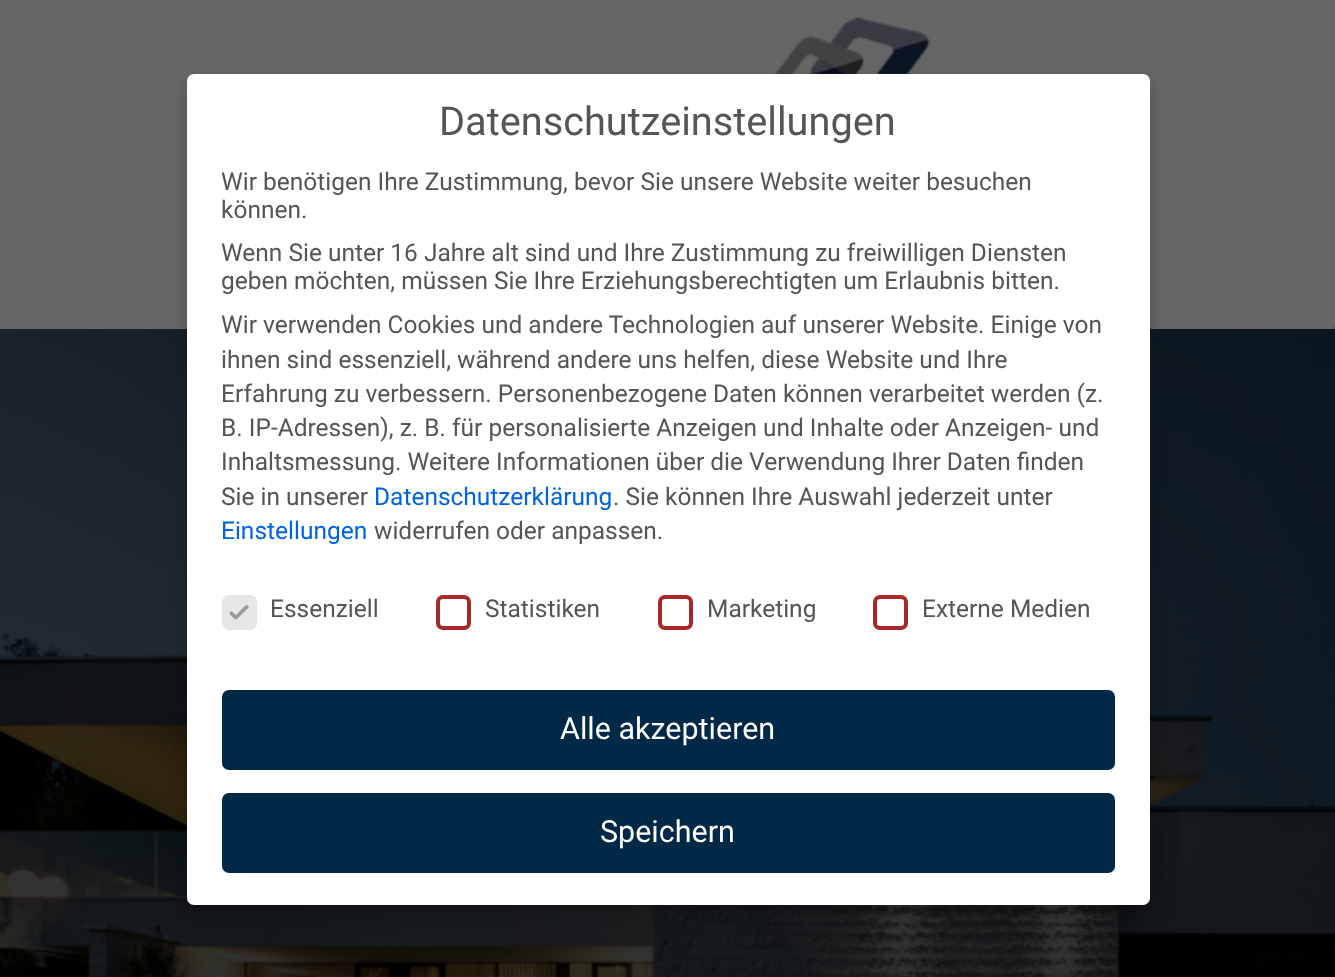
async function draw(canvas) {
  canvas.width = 1335;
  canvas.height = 977;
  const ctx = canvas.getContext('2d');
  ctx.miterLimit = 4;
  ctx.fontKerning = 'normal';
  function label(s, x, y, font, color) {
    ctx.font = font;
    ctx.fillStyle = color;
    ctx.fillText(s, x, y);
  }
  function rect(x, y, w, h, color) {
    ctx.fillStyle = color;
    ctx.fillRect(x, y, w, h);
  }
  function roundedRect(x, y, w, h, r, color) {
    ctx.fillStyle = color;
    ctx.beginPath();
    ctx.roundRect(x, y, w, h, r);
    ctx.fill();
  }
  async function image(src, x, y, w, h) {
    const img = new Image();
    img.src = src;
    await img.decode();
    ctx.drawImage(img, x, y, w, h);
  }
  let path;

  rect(0, 0, 1335, 977, '#666');
  ctx.save();
  path = new Path2D('M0 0H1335V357H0ZM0 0H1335V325C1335 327 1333 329 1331 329H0Z');
  ctx.clip(path, 'evenodd');
  ctx.fillStyle = '#00000080';
  ctx.filter = 'blur(9px)';
  ctx.beginPath();
  ctx.roundRect(0, 0, 1335, 329, 4);
  ctx.fill();
  ctx.filter = 'none';
  ctx.restore();
  await image('assets/img1.png', 773, 17, 157, 57);
  await image('assets/img2.png', 0, 329, 1335, 648);
  ctx.fillStyle = '#00000033';
  ctx.filter = 'blur(7px)';
  ctx.beginPath();
  ctx.roundRect(187, 81, 963, 831, 7);
  ctx.fill();
  ctx.filter = 'none';
  roundedRect(187, 74, 963, 831, 7, '#fff');
  label('Datenschutzeinstellungen', 439, 135, '39.75px Roboto', '#555');
  label('Wir benötigen Ihre Zustimmung, bevor Sie unsere Website weiter besuchen', 221, 190, '24.5px Roboto', '#555');
  label('können.', 221, 218, '24.5px Roboto', '#555');
  label('Wenn Sie unter 16 Jahre alt sind und Ihre Zustimmung zu freiwilligen Diensten', 221, 261, '24.5px Roboto', '#555');
  label('geben möchten, müssen Sie Ihre Erziehungsberechtigten um Erlaubnis bitten.', 221, 289, '24.5px Roboto', '#555');
  label('Wir verwenden Cookies und andere Technologien auf unserer Website. Einige von', 221, 333, '24.5px Roboto', '#555');
  label('ihnen sind essenziell, während andere uns helfen, diese Website und Ihre', 221, 368, '24.5px Roboto', '#555');
  label('Erfahrung zu verbessern. Personenbezogene Daten können verarbeitet werden (z.', 221, 402, '24.5px Roboto', '#555');
  label('B. IP-Adressen), z. B. für personalisierte Anzeigen und Inhalte oder Anzeigen- und', 221, 436, '24.5px Roboto', '#555');
  label('Inhaltsmessung. Weitere Informationen über die Verwendung Ihrer Daten finden', 221, 470, '24.5px Roboto', '#555');
  label('Sie in unserer', 221, 505, '24.5px Roboto', '#555');
  label('Datenschutzerklärung', 374, 505, '24.5px Roboto', '#0063e3');
  label('. Sie können Ihre Auswahl jederzeit unter', 613, 505, '24.5px Roboto', '#555');
  label('Einstellungen', 221, 539, '24.5px Roboto', '#0063e3');
  label('widerrufen oder anpassen.', 374, 539, '24.5px Roboto', '#555');
  ctx.fillStyle = '#e6e6e6';
  ctx.beginPath();
  ctx.roundRect(224, 597, 31, 31, 5);
  ctx.fill();
  ctx.strokeStyle = '#e6e6e6';
  ctx.lineWidth = 4;
  ctx.stroke();
  ctx.fillStyle = '#999';
  path = new Path2D('M246.5 604.5L249 607L236.5 619.5L234 617Z');
  ctx.fill(path);
  path = new Path2D('M231.5 611L237.5 617L235 619.5L229 613.5Z');
  ctx.fill(path);
  label('Essenziell', 270, 617, '24.5px Roboto', '#555');
  ctx.beginPath();
  ctx.roundRect(438, 597, 31, 31, 5);
  ctx.strokeStyle = '#a72828';
  ctx.stroke();
  label('Statistiken', 485, 617, '24.5px Roboto', '#555');
  ctx.beginPath();
  ctx.roundRect(660, 597, 31, 31, 5);
  ctx.stroke();
  label('Marketing', 707, 617, '24.5px Roboto', '#555');
  ctx.beginPath();
  ctx.roundRect(875, 597, 31, 31, 5);
  ctx.stroke();
  label('Externe Medien', 922, 617, '24.5px Roboto', '#555');
  roundedRect(222, 690, 893, 80, 7, '#002847');
  label('Alle akzeptieren', 560, 739, '30.5px Roboto', '#fff');
  roundedRect(222, 793, 893, 80, 7, '#002847');
  label('Speichern', 600, 842, '30.5px Roboto', '#fff');
}

draw(document.querySelector('canvas'));
